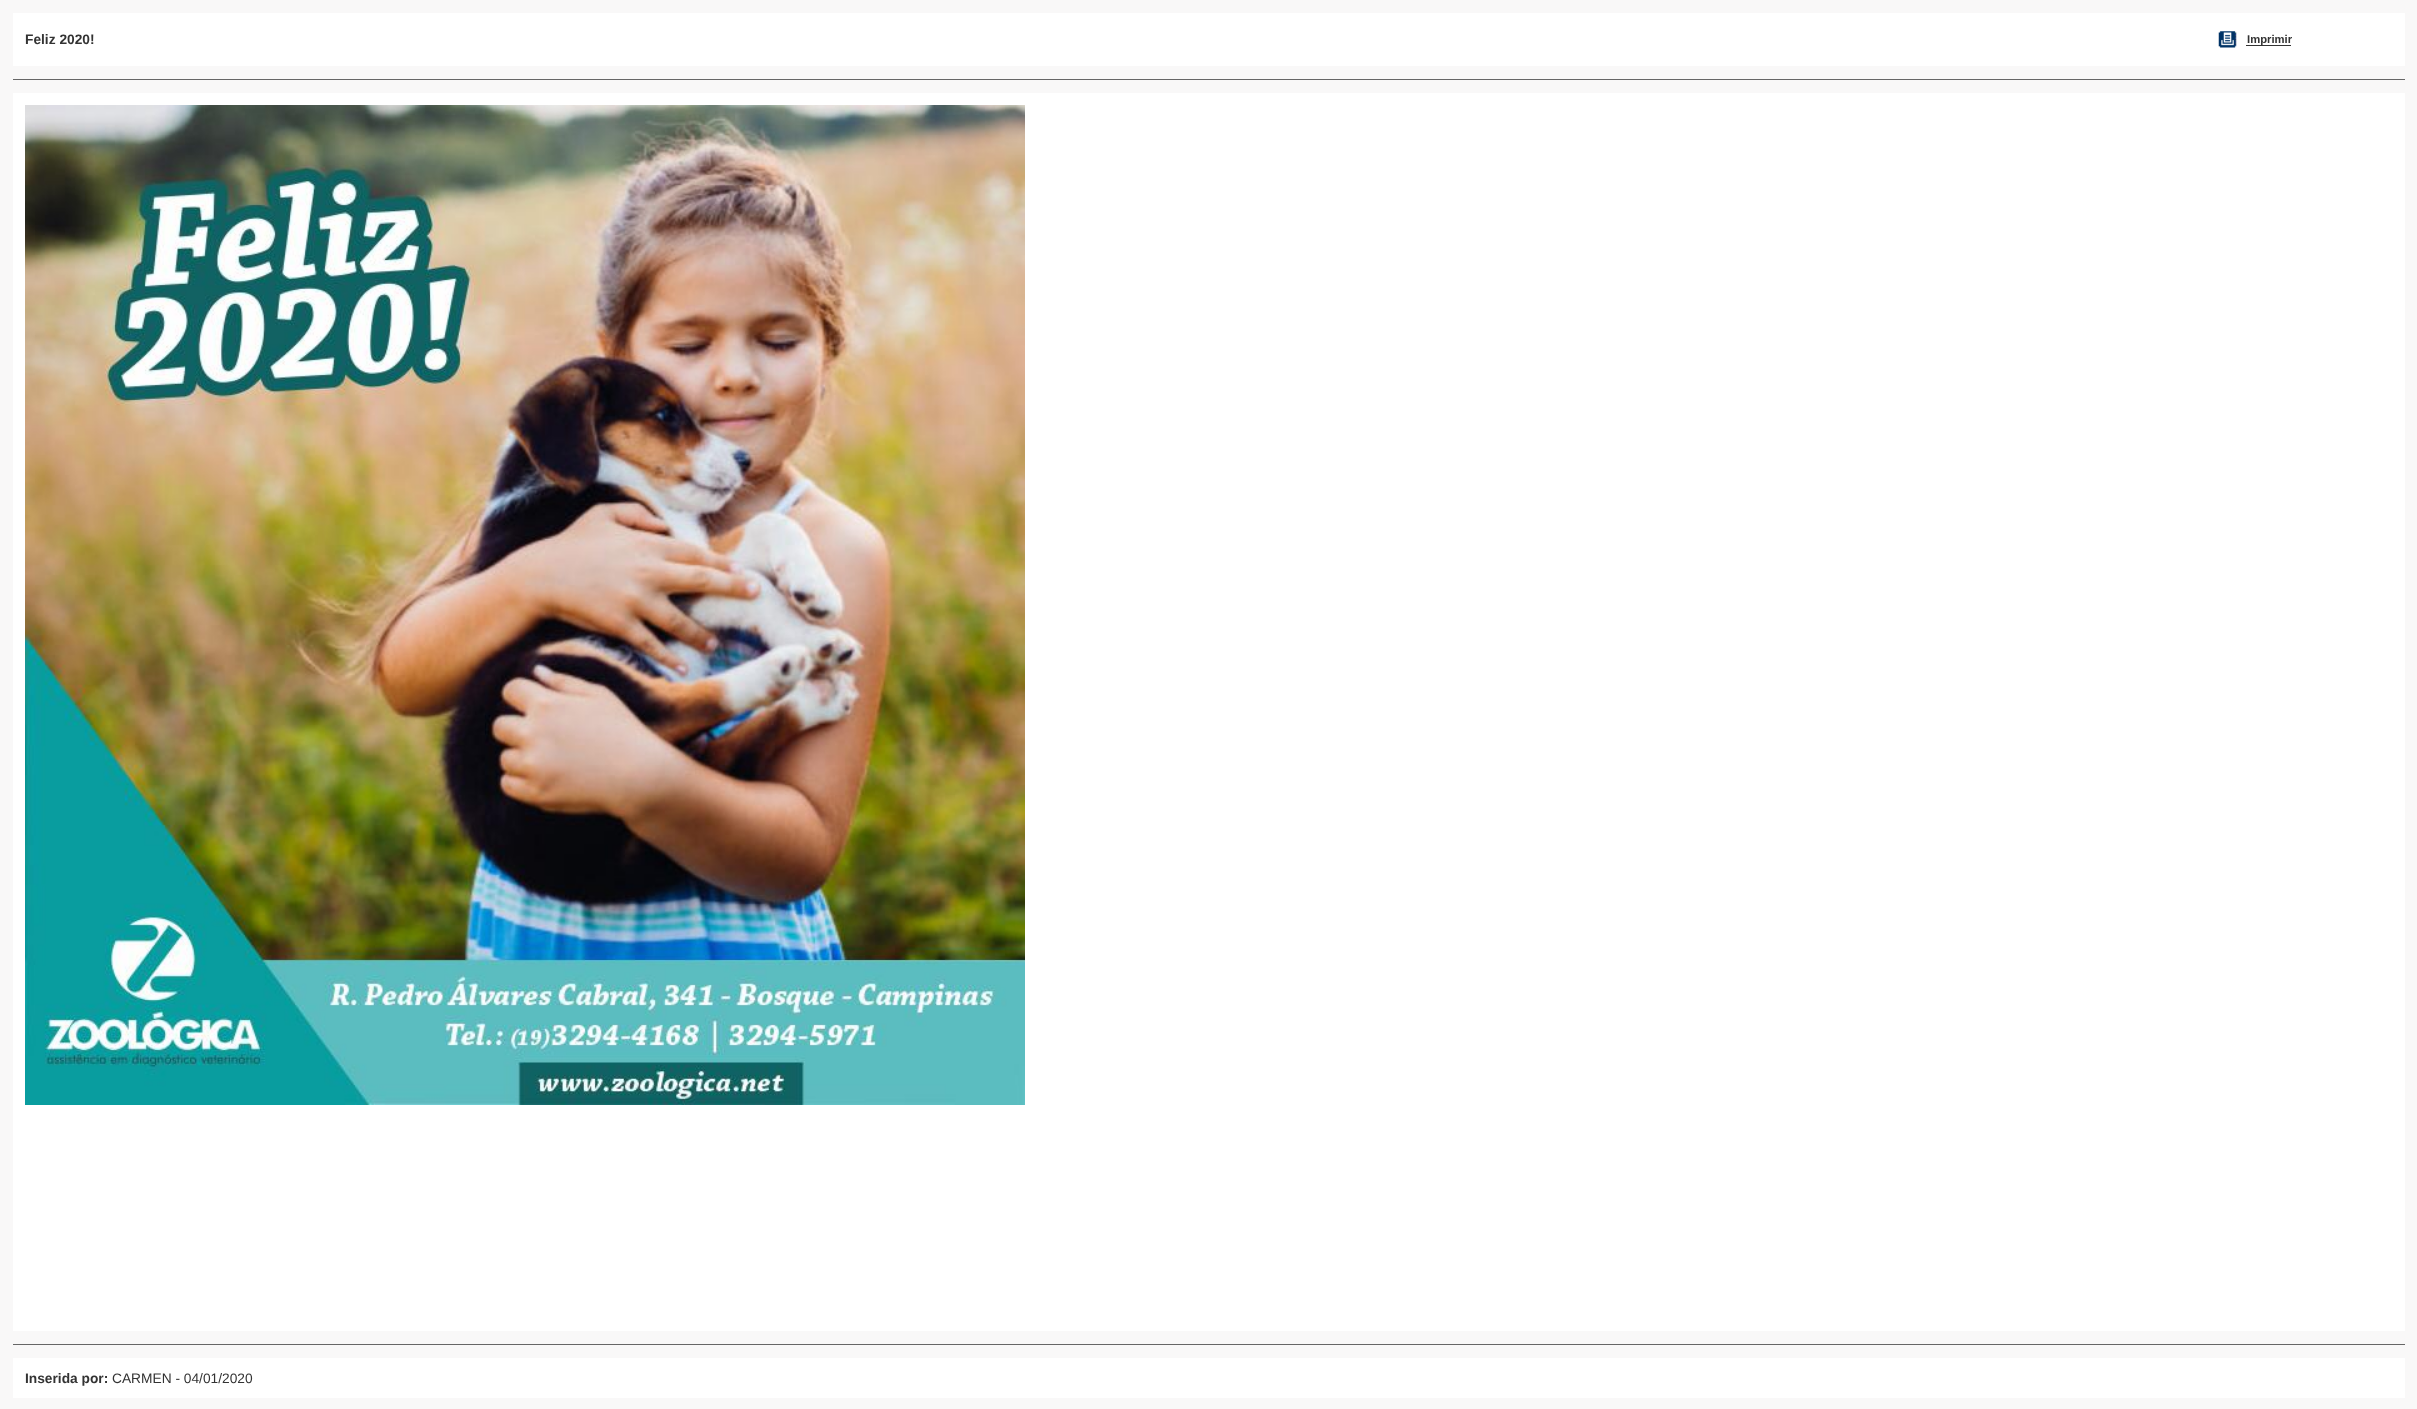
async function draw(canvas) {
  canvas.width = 2417;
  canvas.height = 1409;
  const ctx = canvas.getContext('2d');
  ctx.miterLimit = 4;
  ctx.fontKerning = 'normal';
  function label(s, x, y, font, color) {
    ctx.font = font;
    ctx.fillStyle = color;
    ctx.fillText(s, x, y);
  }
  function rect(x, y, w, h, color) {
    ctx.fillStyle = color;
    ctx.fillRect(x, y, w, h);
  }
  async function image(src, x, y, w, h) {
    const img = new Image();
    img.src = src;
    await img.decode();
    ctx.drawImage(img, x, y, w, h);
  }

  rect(0, 0, 2417, 1409, '#f9f8f8');
  rect(13, 13, 2392, 53, '#fff');
  label('Feliz 2020!', 25, 44, 'bold 13.75px Liberation Sans', '#333');
  await image('assets/img1.png', 2218, 31, 19, 17);
  rect(2246, 45, 45, 1, '#333');
  label('Imprimir', 2247, 43, 'bold 11.25px Liberation Sans', '#333');
  rect(13, 79, 2392, 1, '#666');
  rect(13, 93, 2392, 1238, '#fff');
  await image('assets/img2.png', 25, 105, 1000, 1000);
  rect(13, 1344, 2392, 1, '#666');
  rect(13, 1358, 2392, 40, '#fff');
  label('Inserida por:', 25, 1383, 'bold 13.75px Liberation Sans', '#333');
  label('CARMEN - 04/01/2020', 112, 1383, '13.75px Liberation Sans', '#333');
}

draw(document.querySelector('canvas'));
